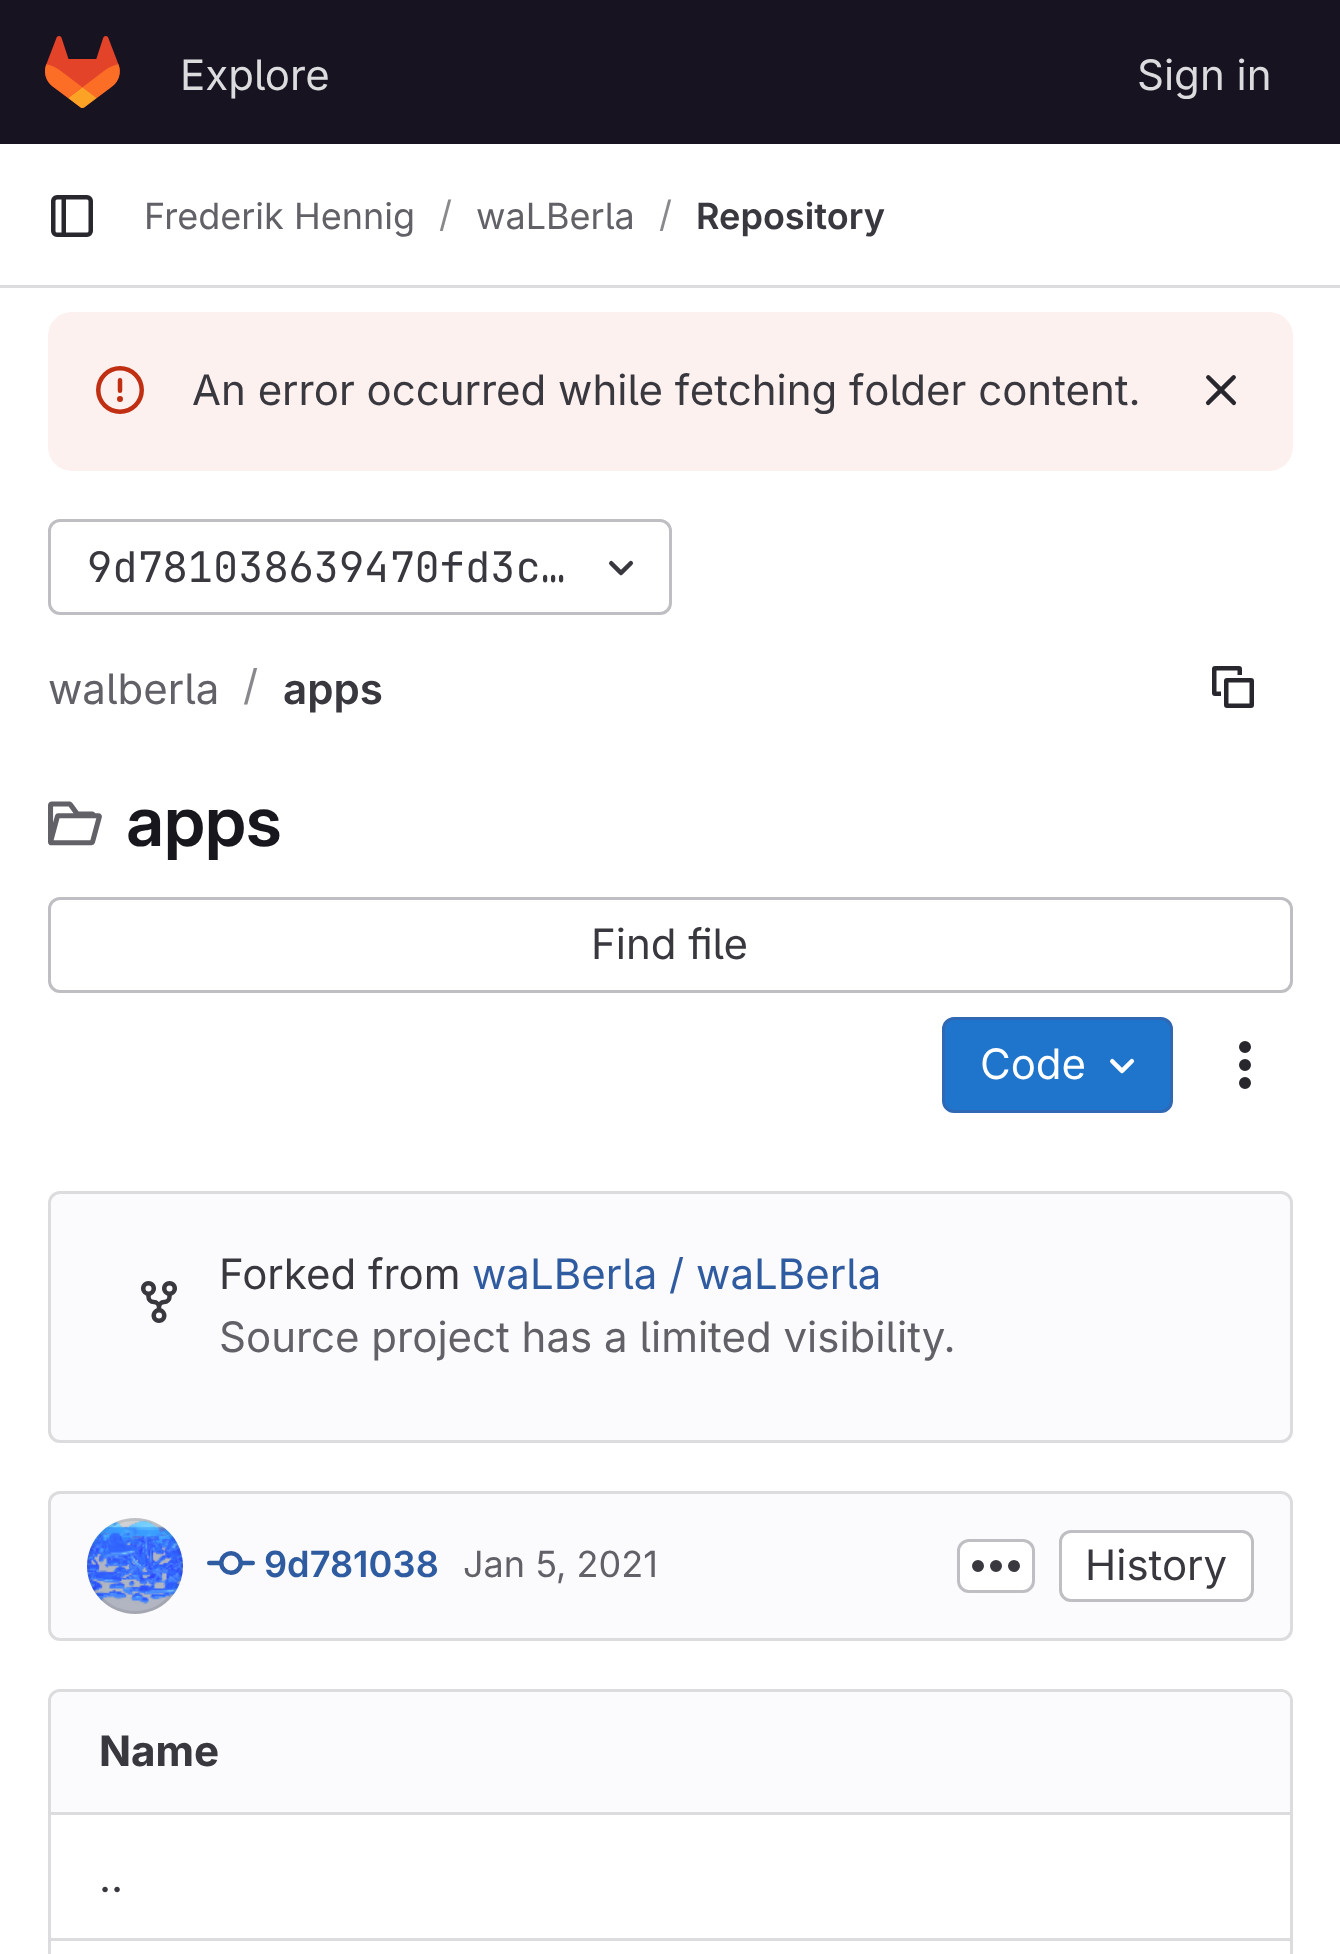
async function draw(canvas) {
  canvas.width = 1340;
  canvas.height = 1954;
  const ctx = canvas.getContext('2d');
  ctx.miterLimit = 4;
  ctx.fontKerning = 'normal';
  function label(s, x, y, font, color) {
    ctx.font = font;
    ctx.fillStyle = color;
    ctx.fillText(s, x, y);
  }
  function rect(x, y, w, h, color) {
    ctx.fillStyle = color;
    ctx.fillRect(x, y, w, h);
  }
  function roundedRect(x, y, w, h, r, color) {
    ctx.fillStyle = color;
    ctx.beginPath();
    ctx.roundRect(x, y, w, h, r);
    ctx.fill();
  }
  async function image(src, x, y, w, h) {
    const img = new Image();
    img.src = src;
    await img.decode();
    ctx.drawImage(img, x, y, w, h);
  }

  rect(0, 0, 1340, 1954, '#fff');
  rect(0, 0, 1340, 144, '#171321');
  await image('assets/img1.png', 45, 36, 75, 72);
  label('Explore', 180, 90, '42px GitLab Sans', '#dcdcde');
  label('Sign in', 1137, 90, '42px GitLab Sans', '#dcdcde');
  rect(0, 285, 1340, 3, '#dcdcde');
  await image('assets/img2.png', 51, 195, 42, 42);
  label('Frederik Hennig', 144, 229, '36px GitLab Sans', '#626168');
  label('/', 439, 227, '36px GitLab Sans', '#89888d');
  label('waLBerla', 476, 229, '36px GitLab Sans', '#626168');
  label('/', 659, 227, '36px GitLab Sans', '#89888d');
  label('Repository', 696, 229, '600 36px "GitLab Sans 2"', '#3a383f');
  roundedRect(48, 312, 1245, 159, 24, '#fcf1ef');
  await image('assets/img3.png', 96, 366, 48, 48);
  label('An error occurred while fetching folder content.', 192, 405, '42px GitLab Sans', '#3a383f');
  await image('assets/img4.png', 1205, 375, 32, 31);
  ctx.beginPath();
  ctx.roundRect(49.5, 520.5, 621, 93, 10.5);
  ctx.strokeStyle = '#bfbfc3';
  ctx.lineWidth = 3;
  ctx.stroke();
  label('9d781038639470fd3c…', 87, 582, '42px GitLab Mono', '#3a383f');
  await image('assets/img5.png', 608, 560, 26, 16);
  label('walberla', 48, 704, '42px GitLab Sans', '#626168');
  label('/', 243, 700, '42px GitLab Sans', '#89888d');
  label('apps', 283, 704, '600 42px "GitLab Sans 2"', '#3a383f');
  await image('assets/img6.png', 1212, 666, 42, 42);
  await image('assets/img7.png', 48, 801, 54, 45);
  label('apps', 126, 846, '600 69px GitLab Sans', '#18171d');
  ctx.beginPath();
  ctx.roundRect(49.5, 898.5, 1242, 93, 10.5);
  ctx.stroke();
  label('Find file', 591, 959, '42px GitLab Sans', '#3a383f');
  ctx.fillStyle = '#1f75cb';
  ctx.beginPath();
  ctx.roundRect(943.5, 1018.5, 228, 93, 10.5);
  ctx.fill();
  ctx.strokeStyle = '#2f68b4';
  ctx.stroke();
  label('Code', 980, 1079, '42px GitLab Sans', '#fff');
  await image('assets/img8.png', 1109, 1058, 26, 16);
  await image('assets/img9.png', 1239, 1041, 12, 48);
  ctx.fillStyle = '#fbfafd';
  ctx.beginPath();
  ctx.roundRect(49.5, 1192.5, 1242, 249, 10.5);
  ctx.fill();
  ctx.strokeStyle = '#dcdcde';
  ctx.stroke();
  await image('assets/img10.png', 141, 1281, 36, 42);
  label('Forked from', 219, 1289, '42px GitLab Sans', '#3a383f');
  label('waLBerla / waLBerla', 472, 1289, '42px GitLab Sans', '#2f5ca0');
  label('Source project has a limited visibility.', 219, 1352, '42px GitLab Sans', '#626168');
  ctx.fillStyle = '#fbfafd';
  ctx.beginPath();
  ctx.roundRect(49.5, 1492.5, 1242, 147, 10.5);
  ctx.fill();
  ctx.stroke();
  await image('assets/img11.png', 87, 1518, 96, 96);
  ctx.beginPath();
  ctx.arc(135, 1566, 46.5, 0, 2 * Math.PI);
  ctx.strokeStyle = '#05050614';
  ctx.stroke();
  await image('assets/img12.png', 207, 1551, 48, 24);
  label('9d781038', 264, 1577, '600 36px "GitLab Sans 2"', '#2f5ca0');
  label('Jan 5, 2021', 463, 1577, '36px GitLab Sans', '#626168');
  ctx.fillStyle = '#fff';
  ctx.beginPath();
  ctx.roundRect(958.5, 1540.5, 75, 51, 10.5);
  ctx.fill();
  ctx.strokeStyle = '#bfbfc3';
  ctx.stroke();
  await image('assets/img13.png', 972, 1560, 48, 12);
  ctx.beginPath();
  ctx.roundRect(1060.5, 1531.5, 192, 69, 10.5);
  ctx.fill();
  ctx.stroke();
  label('History', 1085, 1580, '42px GitLab Sans', '#3a383f');
  ctx.beginPath();
  ctx.roundRect(49.5, 1690.5, 1242, 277, 10.5);
  ctx.strokeStyle = '#dcdcde';
  ctx.stroke();
  ctx.fillStyle = '#fbfafd';
  ctx.beginPath();
  ctx.roundRect(51, 1692, 801, 120, [9, 0, 0, 0]);
  ctx.fill();
  label('Name', 99, 1766, 'bold 42px GitLab Sans', '#3a383f');
  ctx.fillStyle = '#fbfafd';
  ctx.beginPath();
  ctx.roundRect(852, 1692, 438, 120, [0, 9, 0, 0]);
  ctx.fill();
  rect(51, 1938, 1239, 3, '#dcdcde');
  rect(51, 1812, 1239, 3, '#dcdcde');
  label('..', 99, 1892, '42px GitLab Sans', '#3a383f');
}

draw(document.querySelector('canvas'));
